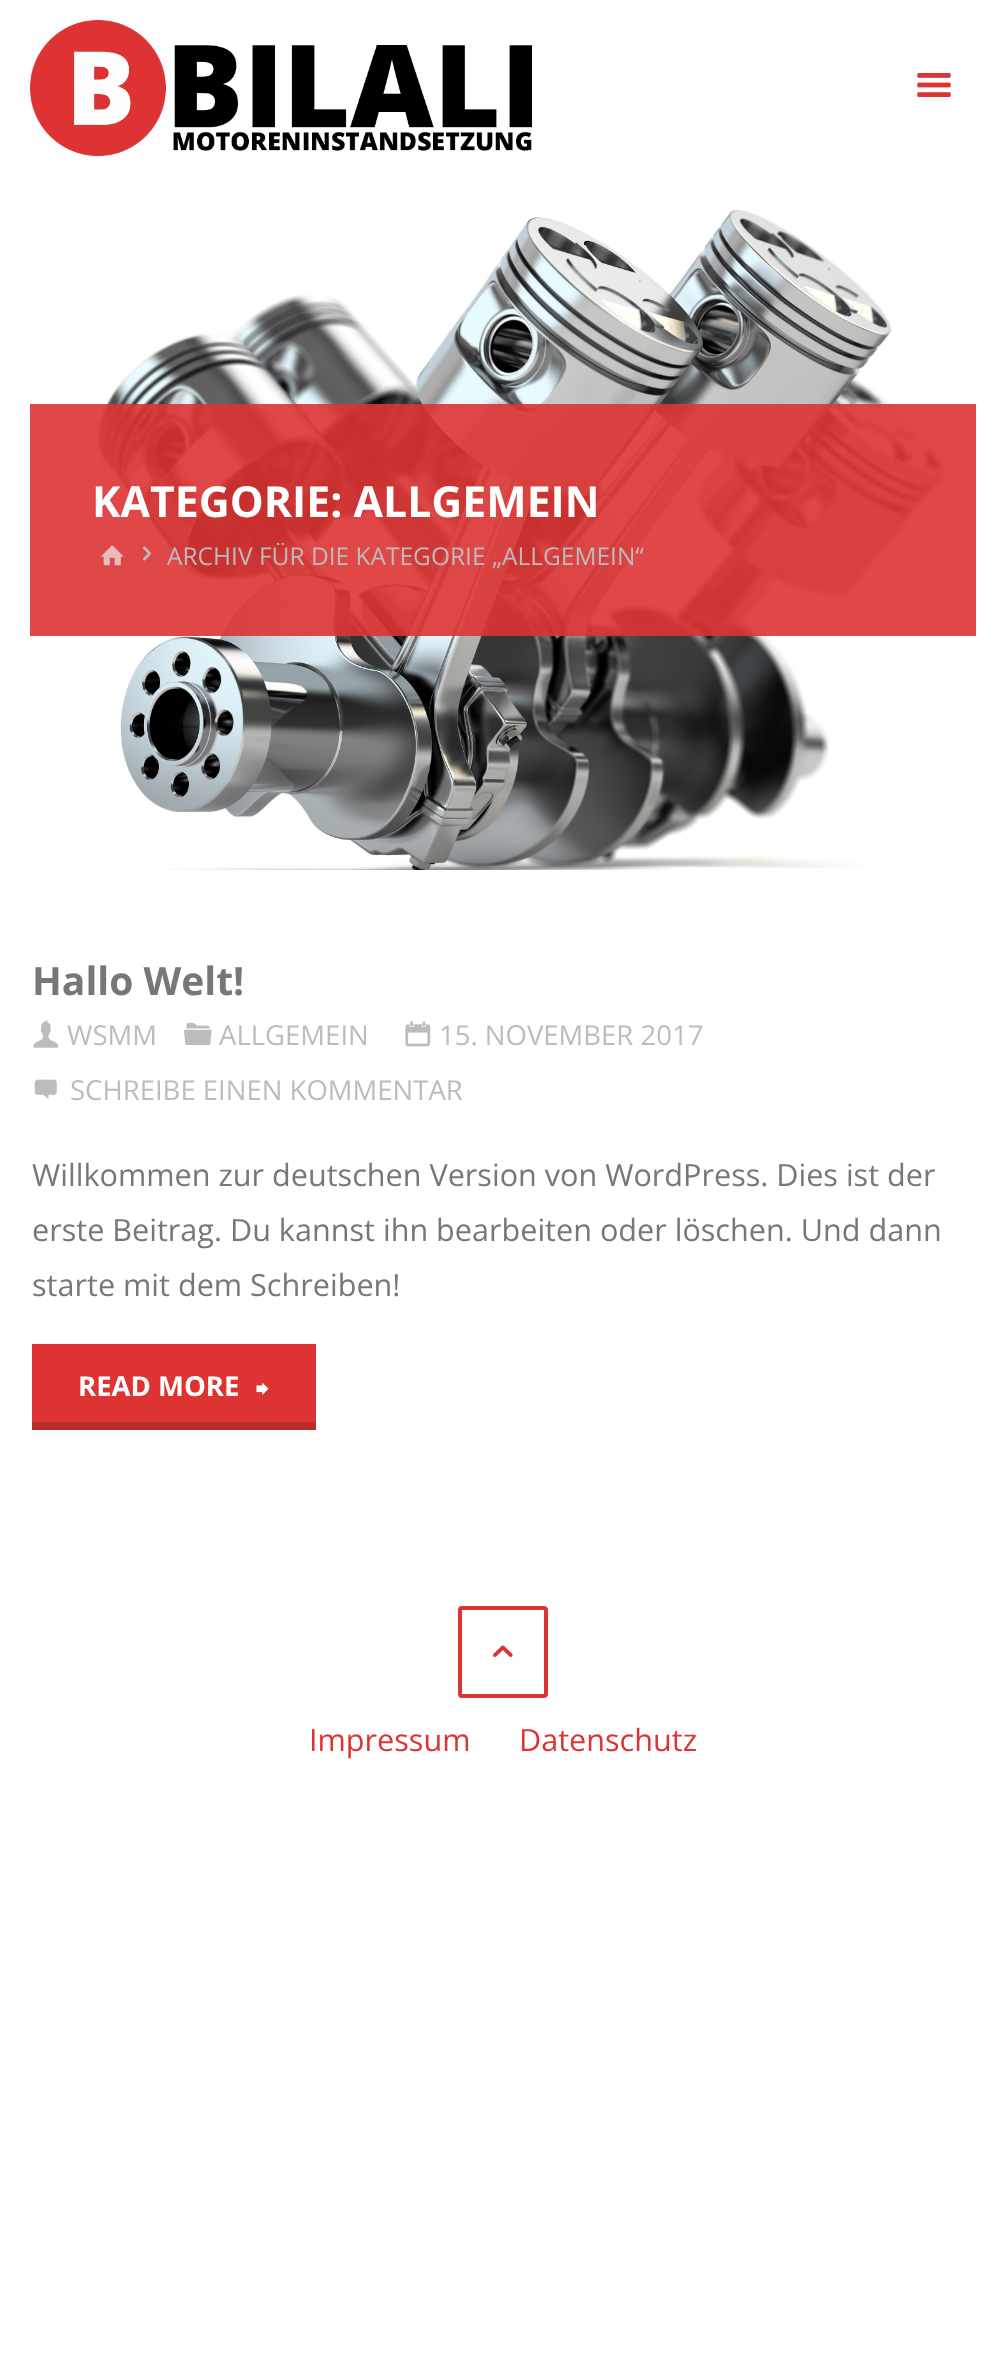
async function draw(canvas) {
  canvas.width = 1006;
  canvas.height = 2379;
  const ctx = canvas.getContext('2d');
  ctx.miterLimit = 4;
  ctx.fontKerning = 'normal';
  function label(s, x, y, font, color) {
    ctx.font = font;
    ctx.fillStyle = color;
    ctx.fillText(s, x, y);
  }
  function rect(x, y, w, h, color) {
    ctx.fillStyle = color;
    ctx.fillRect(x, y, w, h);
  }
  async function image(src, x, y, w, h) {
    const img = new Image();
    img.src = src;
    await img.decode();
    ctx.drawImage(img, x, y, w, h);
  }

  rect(0, 0, 1006, 2379, '#fff');
  await image('assets/img1.png', 30, 20, 502, 136);
  await image('assets/img2.png', 917, 73, 34, 24);
  await image('assets/img3.png', 96, 209, 851, 661);
  rect(30, 404, 946, 232, '#dd3333e6');
  label('KATEGORIE: ALLGEMEIN', 92, 517, 'bold 42.8px Open Sans', '#fff');
  await image('assets/img4.png', 101, 545, 23, 21);
  await image('assets/img5.png', 142, 546, 10, 15);
  label('ARCHIV FÜR DIE KATEGORIE „ALLGEMEIN“', 167, 565, '24.5px Open Sans', '#bcbcbc');
  label('Hallo Welt!', 32, 995, 'bold 39px Open Sans', '#777');
  await image('assets/img6.png', 33, 1020, 26, 28);
  label('WSMM', 67, 1045, '27.5px Open Sans', '#bcbcbc');
  await image('assets/img7.png', 184, 1022, 28, 23);
  label('ALLGEMEIN', 219, 1045, '27.5px Open Sans', '#bcbcbc');
  await image('assets/img8.png', 405, 1021, 26, 26);
  label('15. NOVEMBER 2017', 439, 1045, '27.5px Open Sans', '#bcbcbc');
  await image('assets/img9.png', 34, 1079, 23, 20);
  label('SCHREIBE EINEN KOMMENTAR', 70, 1100, '27.5px Open Sans', '#bcbcbc');
  label('Willkommen zur deutschen Version von WordPress. Dies ist der', 32, 1186, '30.6px Open Sans', '#777');
  label('erste Beitrag. Du kannst ihn bearbeiten oder löschen. Und dann', 32, 1241, '30.6px Open Sans', '#777');
  label('starte mit dem Schreiben!', 32, 1296, '30.6px Open Sans', '#777');
  rect(32, 1344, 284, 78, '#d33');
  label('READ MORE', 78, 1396, 'bold 27.5px Open Sans', '#fff');
  await image('assets/img10.png', 256, 1382, 13, 13);
  rect(32, 1422, 284, 8, '#bc2b2b');
  ctx.beginPath();
  ctx.roundRect(460, 1608, 86, 88, 2);
  ctx.strokeStyle = '#d33';
  ctx.lineWidth = 4;
  ctx.stroke();
  await image('assets/img11.png', 493, 1645, 20, 12);
  label('Impressum', 309, 1751, '30.6px Open Sans', '#d33');
  label('Datenschutz', 519, 1751, '30.6px Open Sans', '#d33');
}

draw(document.querySelector('canvas'));
